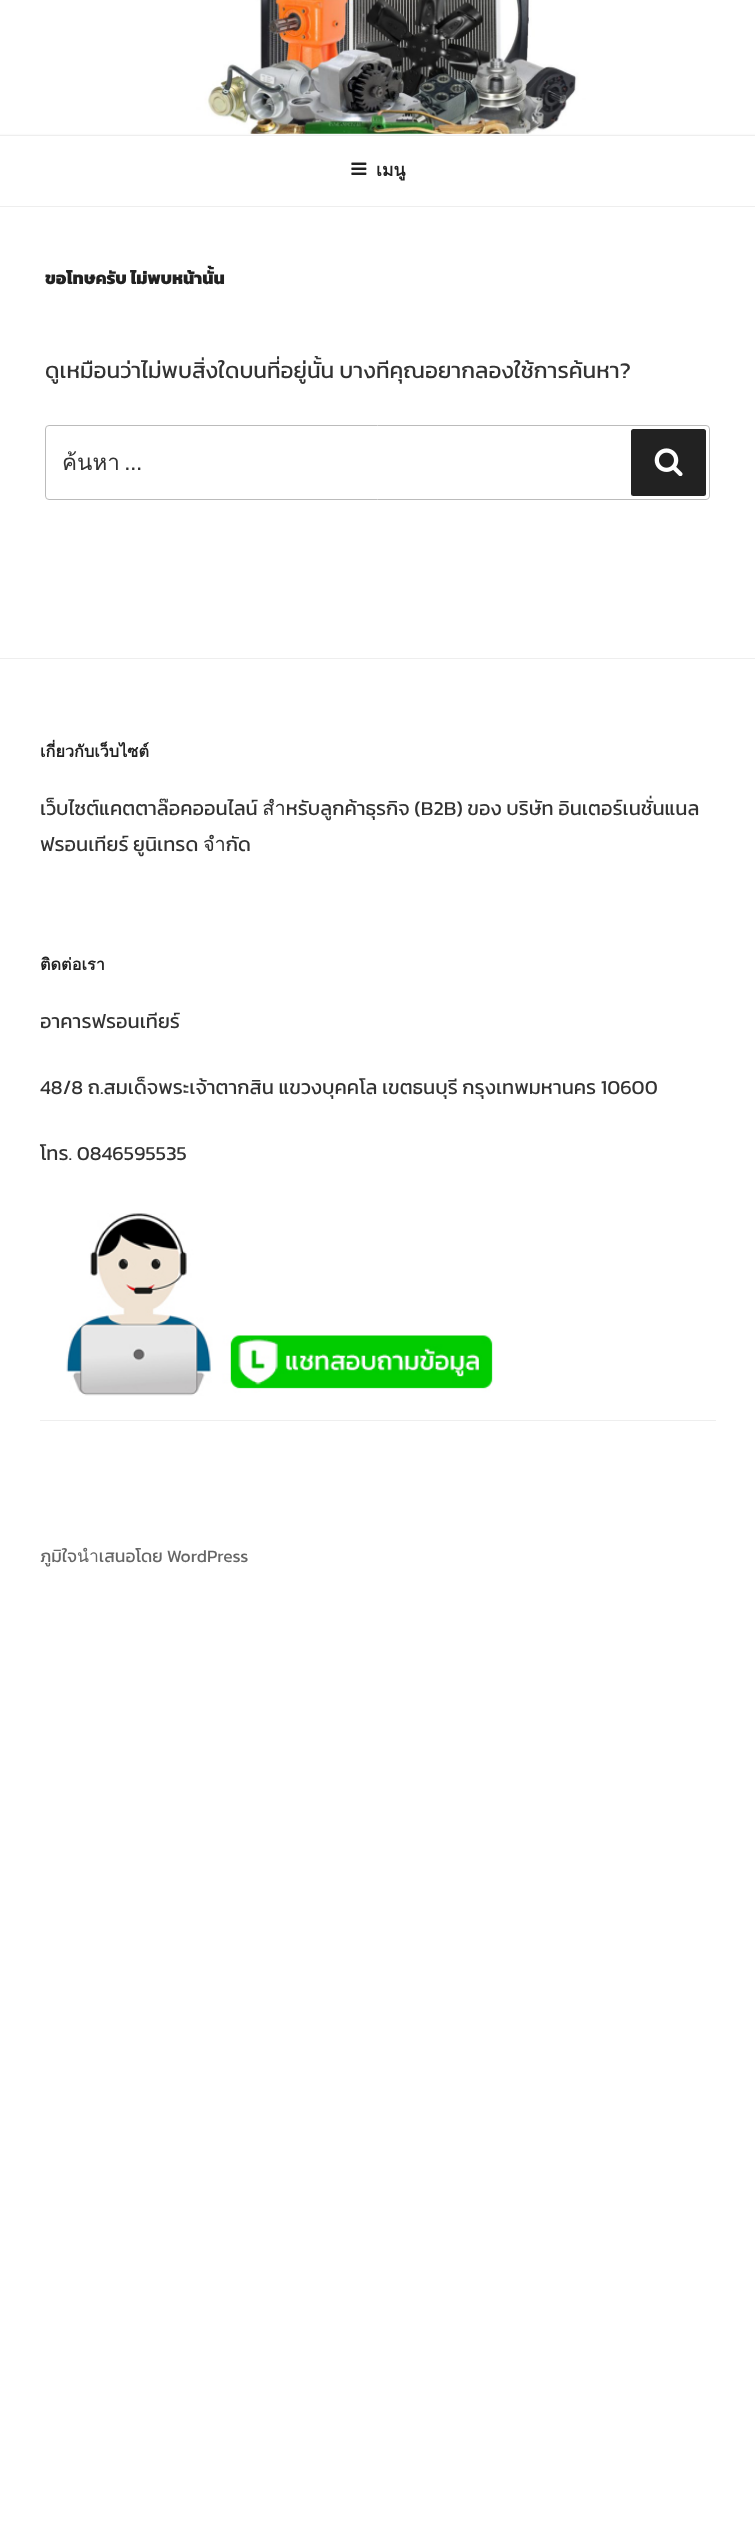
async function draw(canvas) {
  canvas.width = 755;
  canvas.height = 2535;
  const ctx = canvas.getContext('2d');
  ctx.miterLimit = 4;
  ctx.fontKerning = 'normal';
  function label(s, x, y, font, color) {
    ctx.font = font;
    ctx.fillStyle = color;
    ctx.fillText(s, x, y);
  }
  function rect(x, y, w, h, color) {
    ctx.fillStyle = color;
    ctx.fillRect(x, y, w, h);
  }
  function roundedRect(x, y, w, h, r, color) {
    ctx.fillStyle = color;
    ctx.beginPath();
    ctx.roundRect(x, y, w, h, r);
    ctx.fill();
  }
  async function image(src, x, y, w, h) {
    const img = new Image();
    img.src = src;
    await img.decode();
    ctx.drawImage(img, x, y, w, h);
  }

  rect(0, 0, 755, 2535, '#fff');
  rect(0, 133, 755, 2, '#fafafa');
  await image('assets/img1.png', 0, 0, 755, 134);
  rect(0, 135, 755, 1, '#eee');
  rect(0, 206, 755, 1, '#eee');
  await image('assets/img2.png', 351, 162, 16, 13);
  label('เมนู', 376, 176, 'bold 17.5px Loma', '#222');
  label('ขอโทษครับ ไม่พบหน้านั้น', 45, 284, '800 17.5px Kanit', '#222');
  label('ดูเหมือนว่าไม่พบสิ่งใดบนที่อยู่นั้น บางทีคุณอยากลองใช้การค้นหา?', 45, 378, '22.5px Kanit', '#333');
  ctx.beginPath();
  ctx.roundRect(45.5, 425.5, 664, 74, 3.5);
  ctx.strokeStyle = '#bbb';
  ctx.stroke();
  ctx.save();
  ctx.beginPath();
  ctx.rect(63, 444, 625, 36);
  ctx.clip();
  label('ค้นหา', 62, 470, '22.5px Loma', '#333');
  ctx.restore();
  label('…', 125, 470, '100 22.5px Libre Franklin', '#333');
  roundedRect(631, 429, 75, 67, 2.5, '#222');
  await image('assets/img3.png', 654, 448, 29, 28);
  rect(0, 658, 755, 1, '#eee');
  label('เกี่ยวกับเว็บไซต์', 40, 757, 'bold 16.25px Loma', '#222');
  label('เว็บไซต์แคตตาล๊อคออนไลน์ สำหรับลูกค้าธุรกิจ (B2B) ของ บริษัท อินเตอร์เนชั่นแนล', 40, 815, '20px Kanit', '#333');
  label('ฟรอนเทียร์ ยูนิเทรด จำกัด', 40, 851, '20px Kanit', '#333');
  label('ติดต่อเรา', 40, 970, 'bold 16.25px Loma', '#222');
  label('อาคารฟรอนเทียร์', 40, 1028, '20px Kanit', '#333');
  label('48/8 ถ.สมเด็จพระเจ้าตากสิน แขวงบุคคโล เขตธนบุรี กรุงเทพมหานคร 10600', 40, 1094, '20px Kanit', '#333');
  label('โทร. 0846595535', 40, 1160, '20px Kanit', '#333');
  rect(40, 1420, 676, 1, '#eee');
  await image('assets/img4.png', 66, 1213, 427, 183);
  label('ภูมิใจนำเสนอโดย WordPress', 40, 1562, '17.5px Kanit', '#666');
}

draw(document.querySelector('canvas'));
